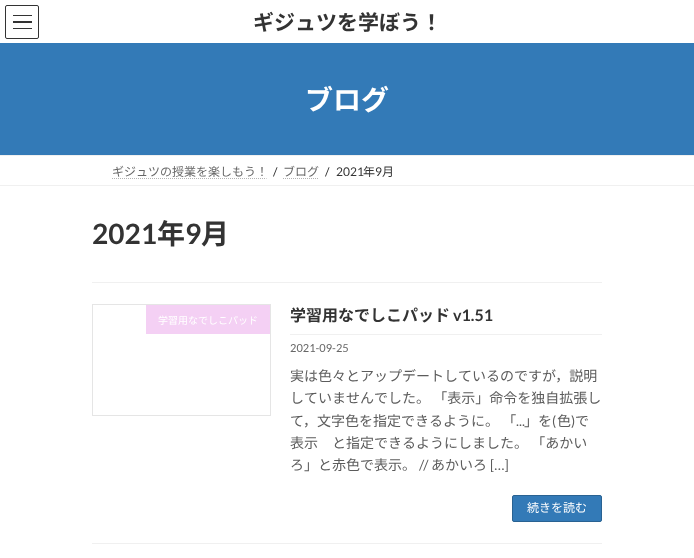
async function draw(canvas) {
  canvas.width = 694;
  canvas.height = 558;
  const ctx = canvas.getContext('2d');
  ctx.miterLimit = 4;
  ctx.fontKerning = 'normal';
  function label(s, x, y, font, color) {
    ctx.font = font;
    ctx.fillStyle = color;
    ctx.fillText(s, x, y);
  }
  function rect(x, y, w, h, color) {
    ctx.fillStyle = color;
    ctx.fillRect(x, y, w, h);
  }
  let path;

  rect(0, 0, 694, 558, '#fff');
  rect(13, 15, 19, 1, '#333');
  rect(13, 21, 19, 2, '#333');
  rect(13, 28, 19, 1, '#333');
  ctx.beginPath();
  ctx.roundRect(5.5, 5.5, 33, 33, 1.5);
  ctx.strokeStyle = '#333';
  ctx.stroke();
  label('ギジュツを学ぼう！', 253, 30, 'bold 21px Noto Sans JP', '#333');
  rect(0, 43, 694, 112, '#337ab7');
  label('ブログ', 305, 110, 'bold 28px Noto Sans JP', '#fff');
  rect(0, 155, 694, 1, '#f0f0f0');
  rect(0, 185, 694, 1, '#f0f0f0');
  label('ギジュツの授業を楽しもう！', 112, 176, '12px Noto Sans JP', '#666');
  path = new Path2D('M112 178.5H266.5');
  ctx.strokeStyle = '#b3b3b3';
  ctx.setLineDash([1, 1]);
  ctx.stroke(path);
  label('/', 273, 176, '12px Lato', '#333');
  label('ブログ', 283, 176, '12px Noto Sans JP', '#666');
  path = new Path2D('M283 178.5H319');
  ctx.stroke(path);
  label('/', 325, 176, '12px Lato', '#333');
  label('2021', 336, 176, '12px Lato', '#333');
  label('年', 363, 176, '12px Noto Sans JP', '#333');
  label('9', 375, 176, '12px Lato', '#333');
  label('月', 382, 176, '12px Noto Sans JP', '#333');
  label('2021', 92, 244, 'bold 28px Lato', '#333');
  label('年', 157, 244, 'bold 28px Noto Sans JP', '#333');
  label('9', 185, 244, 'bold 28px Lato', '#333');
  label('月', 201, 244, 'bold 28px Noto Sans JP', '#333');
  rect(92, 282, 510, 1, '#f0f0f0');
  rect(92, 543, 510, 1, '#f0f0f0');
  ctx.strokeStyle = '#e5e5e5';
  ctx.setLineDash([]);
  ctx.strokeRect(92.5, 304.5, 178, 111);
  rect(146, 305, 124, 29, '#f4d0f4');
  label('学習用なでしこパッド', 158, 324, '10px Noto Sans JP', '#fff');
  rect(290, 334, 312, 1, '#f0f0f0');
  label('学習用なでしこパッド', 290, 321, 'bold 16px Noto Sans JP', '#333');
  label('v1.51', 453, 321, 'bold 16px Lato', '#333');
  label('2021-09-25', 290, 352, '11px Lato', '#666');
  label('実は色々とアップデートしているのですが，説明', 290, 381, '14px Noto Sans JP', '#5c5c5c');
  label('していませんでした。 「表示」命令を独自拡張し', 290, 403, '14px Noto Sans JP', '#5c5c5c');
  label('て，文字色を指定できるように。 「', 290, 426, '14px Noto Sans JP', '#5c5c5c');
  label('...', 516, 426, '14px Lato', '#5c5c5c');
  label('」を', 524, 426, '14px Noto Sans JP', '#5c5c5c');
  label('(', 552, 426, '14px Lato', '#5c5c5c');
  label('色', 557, 426, '14px Noto Sans JP', '#5c5c5c');
  label(')', 571, 426, '14px Lato', '#5c5c5c');
  label('で', 575, 426, '14px Noto Sans JP', '#5c5c5c');
  label('表示　と指定できるようにしました。 「あかい', 290, 448, '14px Noto Sans JP', '#5c5c5c');
  label('ろ」と赤色で表示。', 290, 470, '14px Noto Sans JP', '#5c5c5c');
  label('//', 419, 470, '14px Lato', '#5c5c5c');
  label('あかいろ', 431, 470, '14px Noto Sans JP', '#5c5c5c');
  label('[…]', 490, 470, '14px Lato', '#5c5c5c');
  ctx.fillStyle = '#337ab7';
  ctx.beginPath();
  ctx.roundRect(512.5, 495.5, 89, 26, 1.5);
  ctx.fill();
  ctx.strokeStyle = '#296292';
  ctx.stroke();
  label('続きを読む', 527, 512, '12px Noto Sans JP', '#fff');
}

draw(document.querySelector('canvas'));
